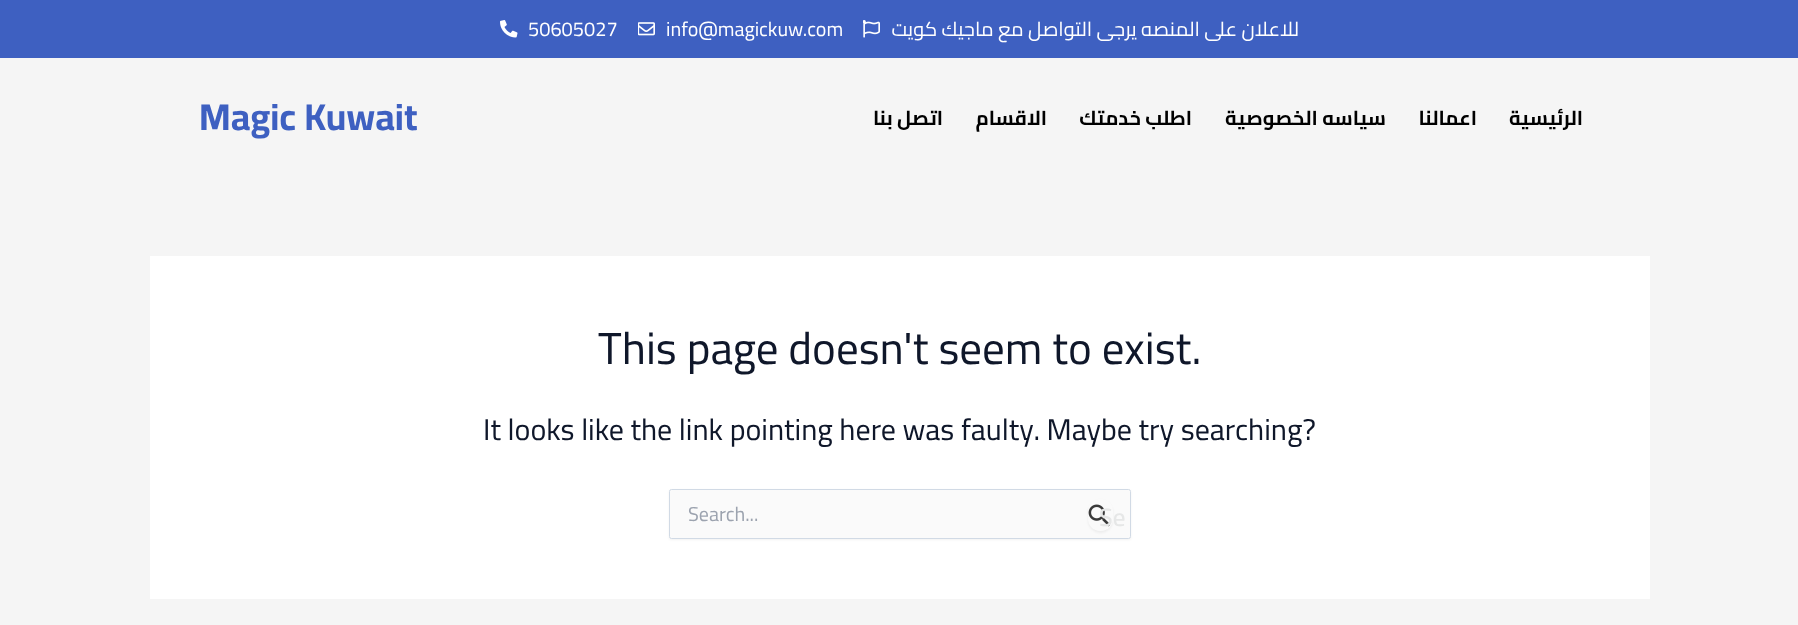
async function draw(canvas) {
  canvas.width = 1798;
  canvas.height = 625;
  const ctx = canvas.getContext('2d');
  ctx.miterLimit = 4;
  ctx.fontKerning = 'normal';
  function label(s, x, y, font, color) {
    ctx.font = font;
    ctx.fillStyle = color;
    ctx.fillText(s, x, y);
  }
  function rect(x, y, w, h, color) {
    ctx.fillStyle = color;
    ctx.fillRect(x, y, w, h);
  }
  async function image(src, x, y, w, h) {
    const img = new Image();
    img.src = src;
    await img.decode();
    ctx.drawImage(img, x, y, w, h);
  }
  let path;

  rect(0, 0, 1798, 625, '#f5f5f5');
  rect(0, 0, 1798, 58, '#3e60c1');
  await image('assets/img1.png', 500, 20, 18, 18);
  label('50605027', 528, 36, '20px Cairo', '#fff');
  await image('assets/img2.png', 638, 22, 17, 14);
  label('info@magickuw.com', 666, 36, '20px Cairo', '#fff');
  await image('assets/img3.png', 863, 20, 17, 18);
  ctx.direction = 'rtl';
  label('للاعلان على المنصه يرجى التواصل مع ماجيك كويت', 1299, 36, '20px Cairo', '#fff');
  ctx.direction = 'ltr';
  label('Magic Kuwait', 199, 130, 'bold 37.5px Cairo', '#3e60c1');
  ctx.direction = 'rtl';
  label('اتصل بنا', 943, 125, 'bold 20px Cairo', '#000');
  label('الاقسام', 1047, 125, 'bold 20px Cairo', '#000');
  label('اطلب خدمتك', 1192, 125, 'bold 20px Cairo', '#000');
  label('سياسه الخصوصية', 1386, 125, 'bold 20px Cairo', '#000');
  label('اعمالنا', 1477, 125, 'bold 20px Cairo', '#000');
  label('الرئيسية', 1583, 125, 'bold 20px Cairo', '#000');
  rect(150, 256, 1500, 343, '#fff');
  ctx.direction = 'ltr';
  label('This page doesn\'t seem to exist.', 598, 364, '45px Cairo', '#0f172a');
  label('It looks like the link pointing here was faulty. Maybe try searching?', 483, 440, '30px Cairo', '#0f172a');
  ctx.fillStyle = '#0000000d';
  ctx.filter = 'blur(1px)';
  ctx.beginPath();
  ctx.roundRect(669, 490, 462, 50, 2.5);
  ctx.fill();
  ctx.filter = 'none';
  ctx.fillStyle = '#fafafa';
  ctx.beginPath();
  ctx.roundRect(669.5, 489.5, 461, 49, 2);
  ctx.fill();
  ctx.strokeStyle = '#d1dae5';
  ctx.stroke();
  label('Search...', 688, 521, '20px Cairo', '#9ca3af');
  ctx.save();
  path = new Path2D('M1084 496H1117V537H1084ZM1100.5 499C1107.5 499 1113 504.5 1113 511.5V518.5C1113 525.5 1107.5 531 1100.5 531C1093.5 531 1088 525.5 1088 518.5V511.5C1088 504.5 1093.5 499 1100.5 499Z');
  ctx.clip(path, 'evenodd');
  ctx.fillStyle = '#0000000d';
  ctx.filter = 'blur(1px)';
  ctx.beginPath();
  ctx.roundRect(1088, 500, 25, 33, 12.5);
  ctx.fill();
  ctx.filter = 'none';
  ctx.restore();
  await image('assets/img4.png', 1088, 504, 22, 23);
  label('Se', 1099, 526, '600 25px Cairo', '#e6e7e7');
}

draw(document.querySelector('canvas'));
